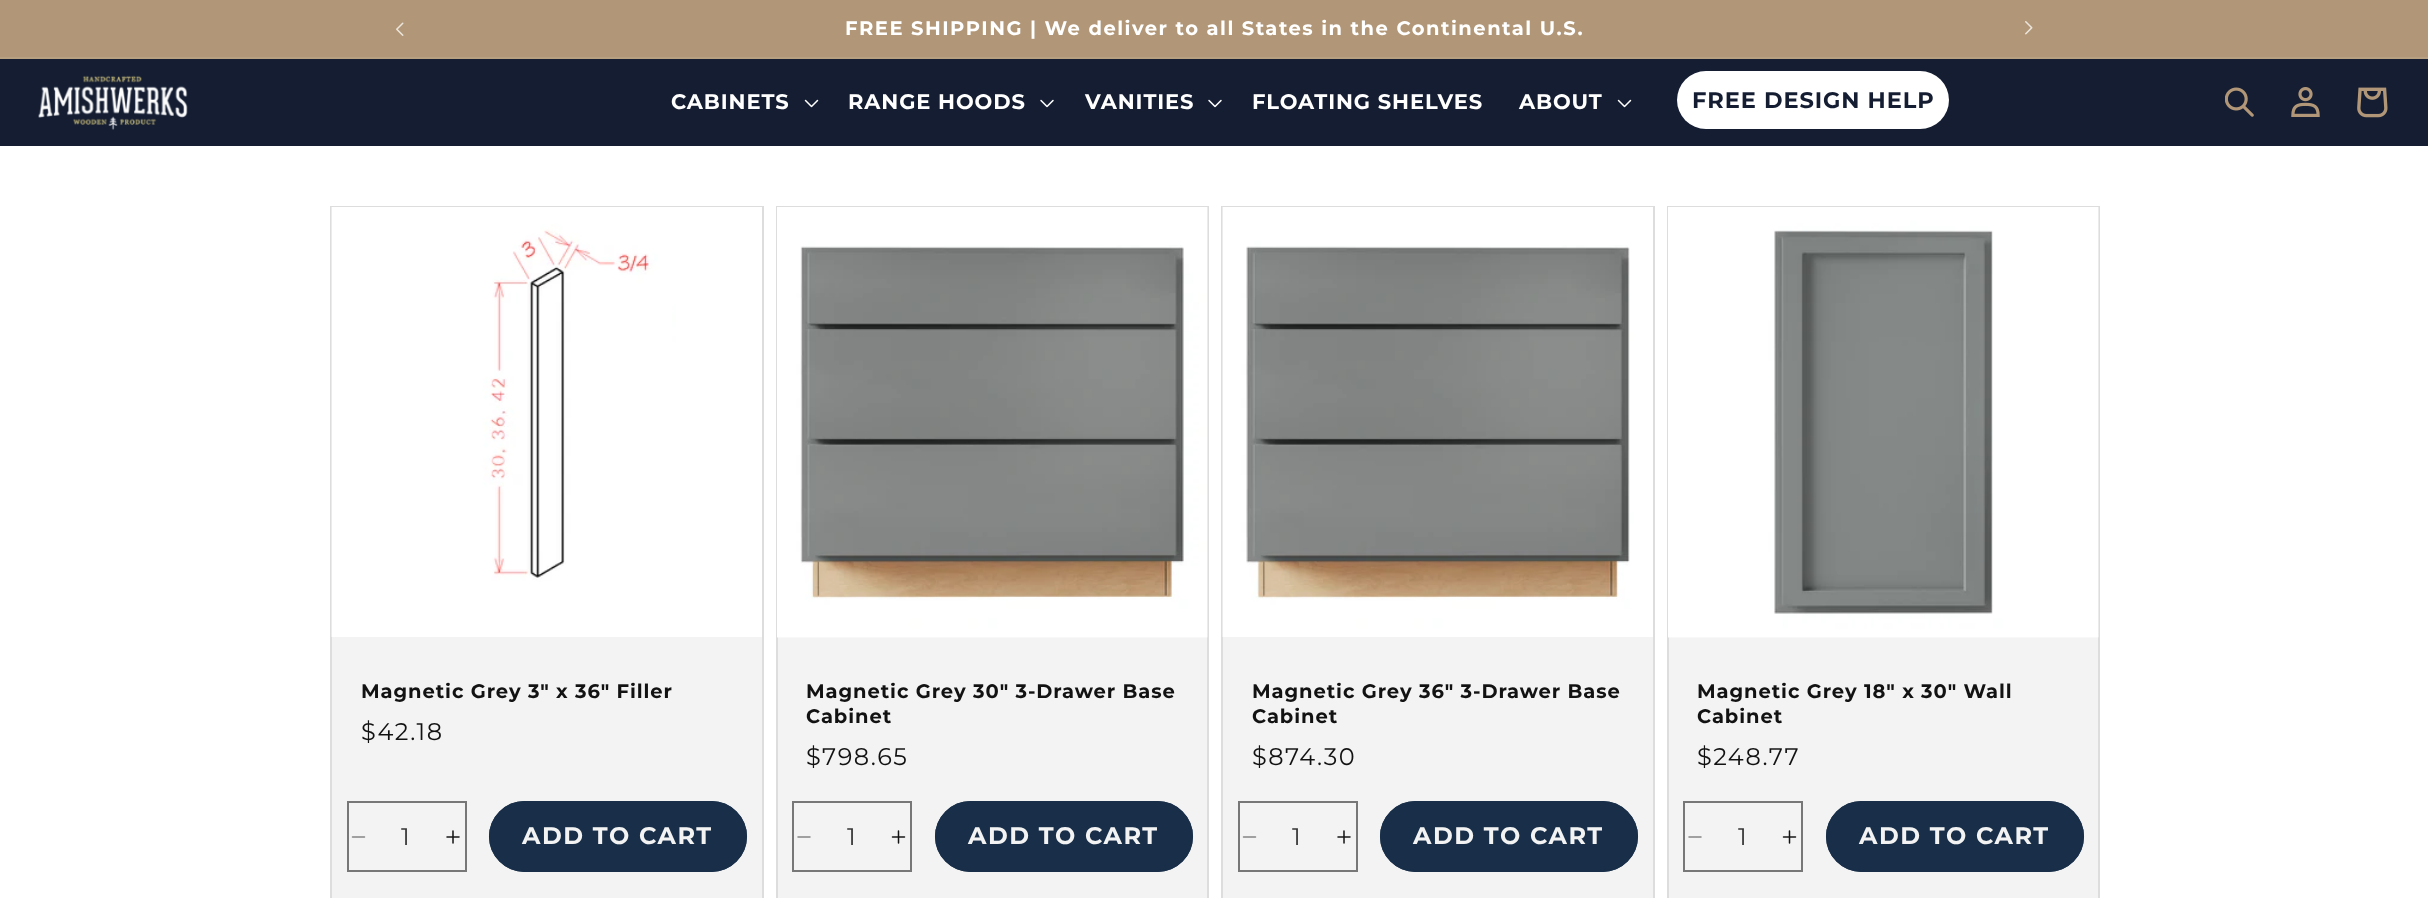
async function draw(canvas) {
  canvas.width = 2428;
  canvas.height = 898;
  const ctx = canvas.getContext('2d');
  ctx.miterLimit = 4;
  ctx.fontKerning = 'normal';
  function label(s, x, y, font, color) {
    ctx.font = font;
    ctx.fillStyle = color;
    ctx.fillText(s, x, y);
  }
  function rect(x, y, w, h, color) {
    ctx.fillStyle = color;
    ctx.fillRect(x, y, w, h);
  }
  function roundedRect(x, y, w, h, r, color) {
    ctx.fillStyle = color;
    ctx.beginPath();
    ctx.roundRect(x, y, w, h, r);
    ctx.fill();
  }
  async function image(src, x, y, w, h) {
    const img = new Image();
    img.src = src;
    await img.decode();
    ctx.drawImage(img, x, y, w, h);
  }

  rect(0, 0, 2428, 898, '#fff');
  rect(0, 0, 2428, 57, '#b19777');
  rect(0, 57, 2428, 2, '#b79f82');
  await image('assets/img1.png', 396, 22, 8, 14);
  ctx.letterSpacing = '1.5px';
  label('FREE SHIPPING | We deliver to all States in the Continental U.S.', 845, 35, 'bold 19.5px Montserrat', '#fff');
  await image('assets/img2.png', 2025, 21, 8, 14);
  rect(0, 59, 2428, 87, '#141d32');
  await image('assets/img3.png', 38, 75, 150, 55);
  ctx.letterSpacing = '0.9px';
  label('CABINETS', 671, 109, 'bold 21px Montserrat', '#fff');
  await image('assets/img4.png', 804, 99, 15, 9);
  label('RANGE HOODS', 848, 109, 'bold 21px Montserrat', '#fff');
  await image('assets/img5.png', 1040, 99, 14, 9);
  label('VANITIES', 1085, 109, 'bold 21px Montserrat', '#fff');
  await image('assets/img5.png', 1208, 99, 14, 9);
  label('FLOATING SHELVES', 1252, 109, 'bold 21px Montserrat', '#fff');
  label('ABOUT', 1519, 109, 'bold 21px Montserrat', '#fff');
  await image('assets/img4.png', 1617, 99, 15, 9);
  roundedRect(1677, 71, 272, 58, 29, '#fff');
  label('FREE DESIGN HELP', 1692, 108, 'bold 22.5px Montserrat', '#141d32');
  await image('assets/img6.png', 2225, 87, 29, 30);
  await image('assets/img7.png', 2291, 87, 29, 30);
  await image('assets/img8.png', 2357, 87, 31, 31);
  rect(332, 637, 430, 261, '#f3f3f3');
  ctx.strokeStyle = '#ddd';
  ctx.lineWidth = 2;
  ctx.strokeRect(331, 207, 432, 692);
  await image('assets/img9.png', 331, 207, 431, 430);
  await image('assets/img10.png', 331, 207, 341, 430);
  label('Magnetic Grey 3" x 36" Filler', 361, 698, 'bold 19.5px Montserrat', '#121212');
  ctx.letterSpacing = '1.5px';
  label('$42.18', 361, 740, '24px Montserrat', '#121212');
  await image('assets/img11.png', 351, 836, 15, 2);
  await image('assets/img12.png', 446, 830, 14, 14);
  ctx.strokeStyle = '#777';
  ctx.strokeRect(348, 802, 118, 69);
  ctx.letterSpacing = '0px';
  label('1', 401, 845, '24px Montserrat', '#343434');
  roundedRect(489, 801, 258, 71, 35.5, '#192f49');
  ctx.beginPath();
  ctx.roundRect(490, 802, 256, 69, 34.5);
  ctx.strokeStyle = '#192f49';
  ctx.stroke();
  ctx.letterSpacing = '1.5px';
  label('ADD TO CART', 522, 844, 'bold 24px Montserrat', '#f3f3f3');
  rect(778, 637, 429, 261, '#f3f3f3');
  ctx.strokeStyle = '#ddd';
  ctx.strokeRect(777, 207, 431, 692);
  await image('assets/img13.png', 777, 207, 431, 431);
  await image('assets/img14.png', 777, 207, 431, 431);
  ctx.letterSpacing = '0.9px';
  label('Magnetic Grey 30" 3-Drawer Base', 806, 698, 'bold 19.5px Montserrat', '#121212');
  label('Cabinet', 806, 723, 'bold 19.5px Montserrat', '#121212');
  ctx.letterSpacing = '1.5px';
  label('$798.65', 806, 765, '24px Montserrat', '#121212');
  await image('assets/img15.png', 797, 836, 14, 2);
  await image('assets/img16.png', 891, 830, 15, 14);
  ctx.strokeStyle = '#777';
  ctx.strokeRect(793, 802, 118, 69);
  ctx.letterSpacing = '0px';
  label('1', 847, 845, '24px Montserrat', '#343434');
  roundedRect(935, 801, 258, 71, 35.5, '#192f49');
  ctx.beginPath();
  ctx.roundRect(936, 802, 256, 69, 34.5);
  ctx.strokeStyle = '#192f49';
  ctx.stroke();
  ctx.letterSpacing = '1.5px';
  label('ADD TO CART', 968, 844, 'bold 24px Montserrat', '#f3f3f3');
  rect(1223, 637, 430, 261, '#f3f3f3');
  ctx.strokeStyle = '#ddd';
  ctx.strokeRect(1222, 207, 432, 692);
  await image('assets/img17.png', 1222, 207, 431, 430);
  await image('assets/img18.png', 1222, 207, 408, 430);
  ctx.letterSpacing = '0.9px';
  label('Magnetic Grey 36" 3-Drawer Base', 1252, 698, 'bold 19.5px Montserrat', '#121212');
  label('Cabinet', 1252, 723, 'bold 19.5px Montserrat', '#121212');
  ctx.letterSpacing = '1.5px';
  label('$874.30', 1252, 765, '24px Montserrat', '#121212');
  await image('assets/img11.png', 1242, 836, 15, 2);
  await image('assets/img12.png', 1337, 830, 14, 14);
  ctx.strokeStyle = '#777';
  ctx.strokeRect(1239, 802, 118, 69);
  ctx.letterSpacing = '0px';
  label('1', 1292, 845, '24px Montserrat', '#343434');
  roundedRect(1380, 801, 258, 71, 35.5, '#192f49');
  ctx.beginPath();
  ctx.roundRect(1381, 802, 256, 69, 34.5);
  ctx.strokeStyle = '#192f49';
  ctx.stroke();
  ctx.letterSpacing = '1.5px';
  label('ADD TO CART', 1413, 844, 'bold 24px Montserrat', '#f3f3f3');
  rect(1669, 637, 429, 261, '#f3f3f3');
  ctx.strokeStyle = '#ddd';
  ctx.strokeRect(1668, 207, 431, 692);
  await image('assets/img19.png', 1668, 207, 431, 431);
  await image('assets/img20.png', 1668, 207, 431, 431);
  ctx.letterSpacing = '0.9px';
  label('Magnetic Grey 18" x 30" Wall', 1697, 698, 'bold 19.5px Montserrat', '#121212');
  label('Cabinet', 1697, 723, 'bold 19.5px Montserrat', '#121212');
  ctx.letterSpacing = '1.5px';
  label('$248.77', 1697, 765, '24px Montserrat', '#121212');
  await image('assets/img15.png', 1688, 836, 14, 2);
  await image('assets/img16.png', 1782, 830, 15, 14);
  ctx.strokeStyle = '#777';
  ctx.strokeRect(1684, 802, 118, 69);
  ctx.letterSpacing = '0px';
  label('1', 1738, 845, '24px Montserrat', '#343434');
  roundedRect(1826, 801, 258, 71, 35.5, '#192f49');
  ctx.beginPath();
  ctx.roundRect(1827, 802, 256, 69, 34.5);
  ctx.strokeStyle = '#192f49';
  ctx.stroke();
  ctx.letterSpacing = '1.5px';
  label('ADD TO CART', 1859, 844, 'bold 24px Montserrat', '#f3f3f3');
}

draw(document.querySelector('canvas'));
